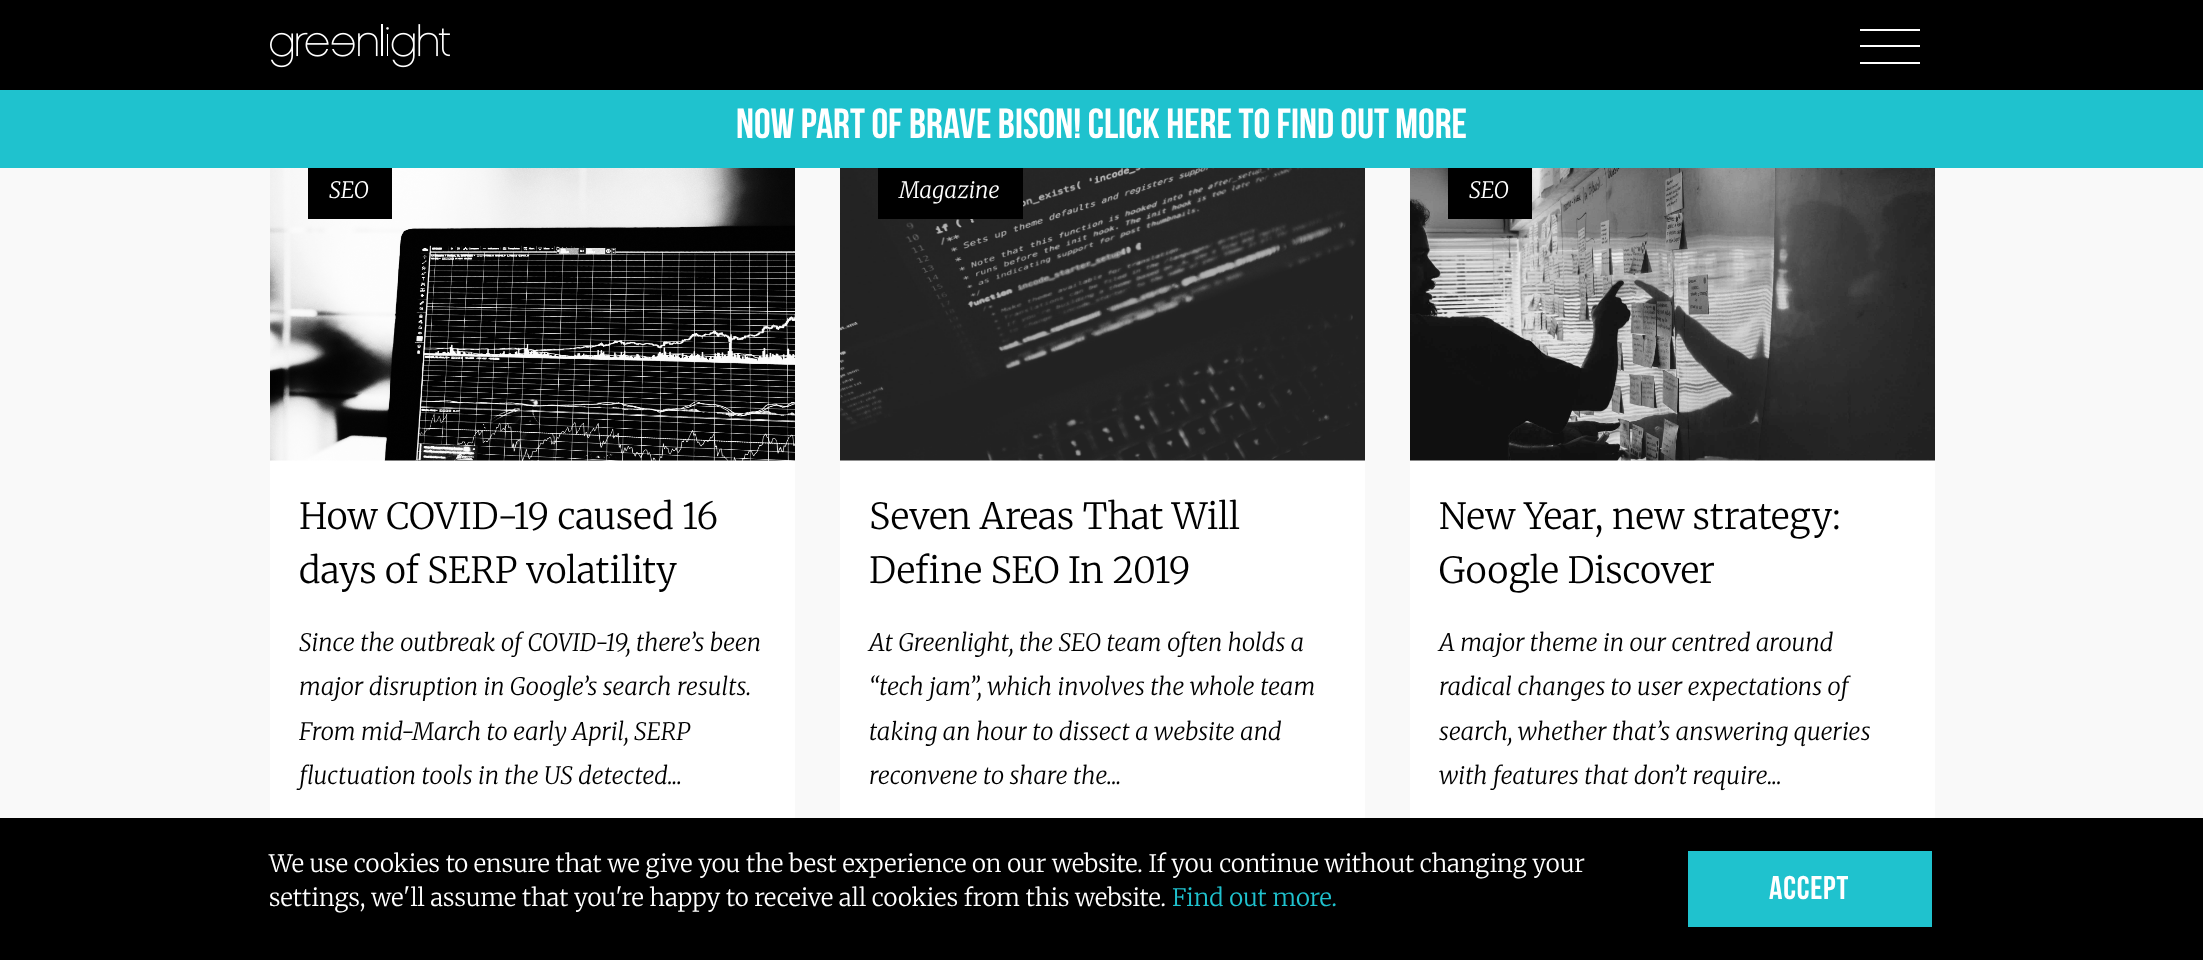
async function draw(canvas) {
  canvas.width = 2203;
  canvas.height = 960;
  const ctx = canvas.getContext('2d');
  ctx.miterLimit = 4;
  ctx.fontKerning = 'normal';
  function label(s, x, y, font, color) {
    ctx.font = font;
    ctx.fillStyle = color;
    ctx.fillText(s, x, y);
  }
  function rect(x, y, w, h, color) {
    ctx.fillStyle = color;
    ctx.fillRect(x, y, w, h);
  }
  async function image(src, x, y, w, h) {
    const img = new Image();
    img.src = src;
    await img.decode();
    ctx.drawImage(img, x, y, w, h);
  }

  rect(0, 0, 2203, 960, '#f9f9f9');
  rect(0, 0, 2203, 90, '#000');
  await image('assets/img1.png', 270, 24, 180, 44);
  rect(1860, 29, 60, 2, '#fff');
  rect(1860, 45, 60, 2, '#fff');
  rect(1860, 62, 60, 2, '#fff');
  rect(0, 90, 2203, 78, '#1fc2ce');
  label('Now part of brave bison! Click here to find out more', 736, 138, 'bold 42px Bebas Neue', '#fff');
  rect(270, 460, 525, 358, '#fff');
  await image('assets/img2.png', 270, 168, 525, 293);
  rect(308, 168, 84, 51, '#000');
  label('SEO', 329, 198, 'italic 300 22.5px Merriweather', '#fff');
  label('How COVID-19 caused 16', 299, 529, '300 36px Merriweather', '#000');
  label('days of SERP volatility', 299, 583, '300 36px Merriweather', '#000');
  label('Since the outbreak of COVID-19, there’s been', 299, 651, 'italic 300 24px Merriweather', '#000');
  label('major disruption in Google’s search results.', 299, 695, 'italic 300 24px Merriweather', '#000');
  label('From mid-March to early April, SERP', 299, 740, 'italic 300 24px Merriweather', '#000');
  label('fluctuation tools in the US detected...', 299, 784, 'italic 300 24px Merriweather', '#000');
  rect(840, 460, 525, 358, '#fff');
  await image('assets/img3.png', 840, 168, 525, 293);
  rect(878, 168, 145, 51, '#000');
  label('Magazine', 899, 198, 'italic 300 22.5px Merriweather', '#fff');
  label('Seven Areas That Will', 869, 529, '300 36px Merriweather', '#000');
  label('Define SEO In 2019', 869, 583, '300 36px Merriweather', '#000');
  label('At Greenlight, the SEO team often holds a', 869, 651, 'italic 300 24px Merriweather', '#000');
  label('“tech jam”, which involves the whole team', 869, 695, 'italic 300 24px Merriweather', '#000');
  label('taking an hour to dissect a website and', 869, 740, 'italic 300 24px Merriweather', '#000');
  label('reconvene to share the...', 869, 784, 'italic 300 24px Merriweather', '#000');
  rect(1410, 460, 525, 358, '#fff');
  await image('assets/img4.png', 1410, 168, 525, 293);
  rect(1448, 168, 84, 51, '#000');
  label('SEO', 1469, 198, 'italic 300 22.5px Merriweather', '#fff');
  label('New Year, new strategy:', 1439, 529, '300 36px Merriweather', '#000');
  label('Google Discover', 1439, 583, '300 36px Merriweather', '#000');
  label('A major theme in our centred around', 1439, 651, 'italic 300 24px Merriweather', '#000');
  label('radical changes to user expectations of', 1439, 695, 'italic 300 24px Merriweather', '#000');
  label('search, whether that’s answering queries', 1439, 740, 'italic 300 24px Merriweather', '#000');
  label('with features that don’t require...', 1439, 784, 'italic 300 24px Merriweather', '#000');
  rect(0, 818, 2203, 142, '#000');
  label('We use cookies to ensure that we give you the best experience on our website. If you continue without changing your', 269, 872, '300 24px Merriweather', '#fff');
  label('settings, we\'ll assume that you\'re happy to receive all cookies from this website.', 269, 906, '300 24px Merriweather', '#fff');
  label('Find out more.', 1172, 906, '300 24px Merriweather', '#1fc2ce');
  rect(1688, 851, 244, 76, '#1fc2ce');
  ctx.letterSpacing = '0.75px';
  label('ACCEPT', 1769, 899, 'bold 33px Bebas Neue', '#fff');
}

draw(document.querySelector('canvas'));
